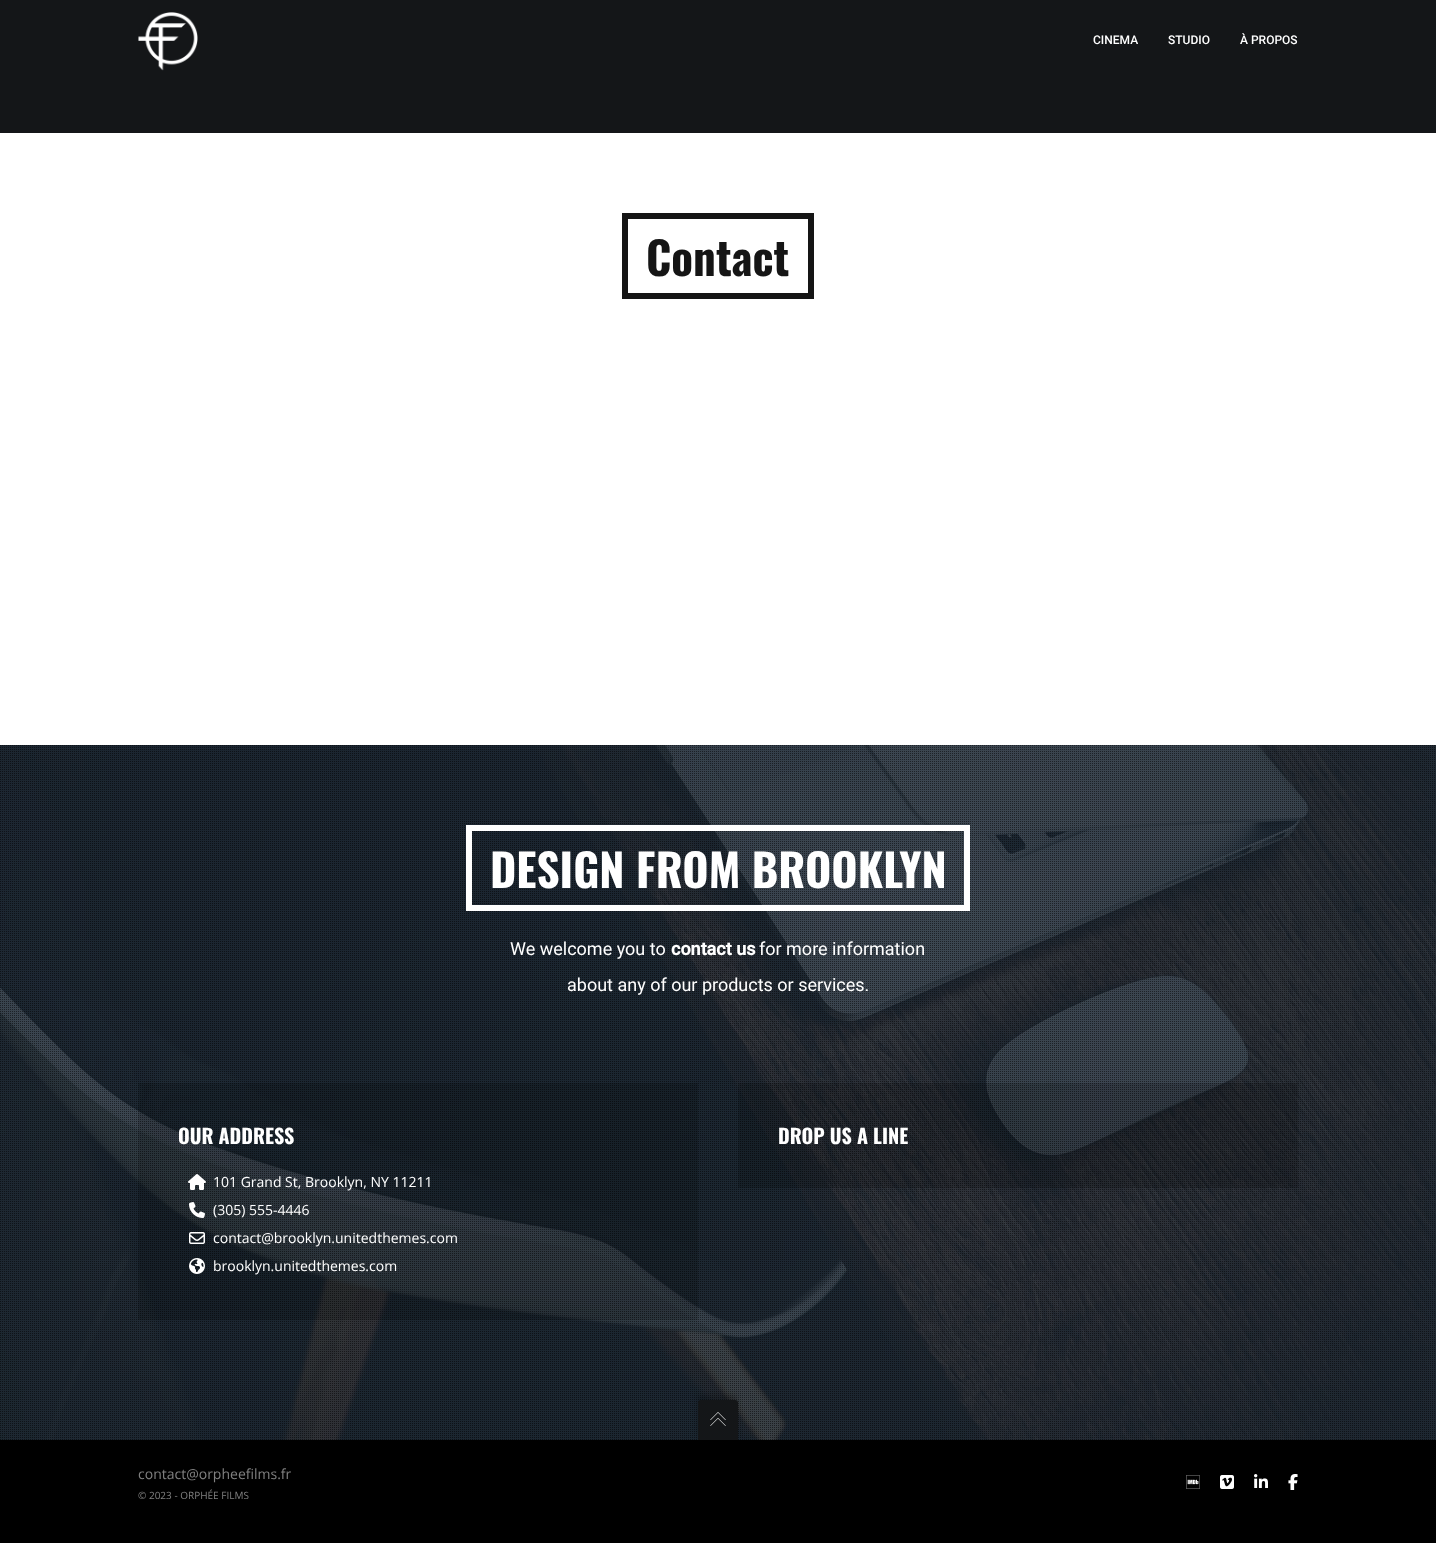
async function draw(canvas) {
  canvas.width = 1436;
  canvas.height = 1543;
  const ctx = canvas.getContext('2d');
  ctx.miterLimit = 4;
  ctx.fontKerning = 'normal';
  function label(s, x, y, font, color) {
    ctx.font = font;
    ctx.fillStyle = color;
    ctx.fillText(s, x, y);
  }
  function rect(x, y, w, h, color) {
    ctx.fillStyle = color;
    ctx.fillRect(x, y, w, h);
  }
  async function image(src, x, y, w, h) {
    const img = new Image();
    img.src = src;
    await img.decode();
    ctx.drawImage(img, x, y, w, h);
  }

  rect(0, 0, 1436, 1543, '#fff');
  rect(0, 0, 1436, 133, '#141618');
  await image('assets/img1.png', 138, 12, 60, 59);
  label('CINEMA', 1093, 44, '500 12px Roboto', '#fff');
  label('STUDIO', 1168, 44, '500 12px Roboto', '#fff');
  label('À PROPOS', 1240, 44, '500 12px Roboto', '#fff');
  ctx.strokeStyle = '#151515';
  ctx.lineWidth = 6;
  ctx.strokeRect(625, 216, 186, 80);
  label('Contact', 646, 276, 'bold 45px Oswald', '#151515');
  await image('assets/img2.png', 0, 745, 1436, 695);
  await image('assets/img3.png', 0, 745, 1436, 695);
  ctx.strokeStyle = '#fff';
  ctx.strokeRect(469, 828, 498, 80);
  label('DESIGN FROM BROOKLYN', 490, 888, 'bold 45px Oswald', '#fff');
  label('We welcome you to', 510, 955, '18px Roboto', '#fff');
  label('contact us', 671, 955, 'bold 18px Roboto', '#fff');
  label('for more information', 759, 955, '18px Roboto', '#fff');
  label('about any of our products or services.', 567, 991, '18px Roboto', '#fff');
  rect(138, 1083, 560, 237, '#00000026');
  label('OUR ADDRESS', 178, 1144, 'bold 20px Oswald', '#fff');
  await image('assets/img4.png', 188, 1174, 18, 16);
  label('101 Grand St, Brooklyn, NY 11211', 213, 1187, '14px Open Sans', '#fff');
  await image('assets/img5.png', 189, 1202, 16, 16);
  label('(305) 555-4446', 213, 1215, '14px Open Sans', '#fff');
  await image('assets/img6.png', 189, 1232, 16, 12);
  label('contact@brooklyn.unitedthemes.com', 213, 1243, '14px Open Sans', '#fff');
  await image('assets/img7.png', 189, 1258, 16, 16);
  label('brooklyn.unitedthemes.com', 213, 1271, '14px Open Sans', '#fff');
  rect(738, 1083, 560, 105, '#00000026');
  label('DROP US A LINE', 778, 1144, 'bold 20px Oswald', '#fff');
  rect(0, 1440, 1436, 103, '#000');
  ctx.fillStyle = '#00000033';
  ctx.filter = 'blur(2.5px)';
  ctx.beginPath();
  ctx.roundRect(698, 1395, 40, 40, 3);
  ctx.fill();
  ctx.filter = 'none';
  ctx.fillStyle = '#141618';
  ctx.beginPath();
  ctx.roundRect(698, 1400, 40, 40, [3, 3, 0, 0]);
  ctx.fill();
  await image('assets/img8.png', 710, 1412, 16, 14);
  label('contact@orpheefilms.fr', 138, 1479, '14px Open Sans', '#808080');
  label('© 2023 - ORPHÉE FILMS', 138, 1499, '10px Open Sans', '#808080');
  await image('assets/img9.png', 1186, 1475, 14, 14);
  await image('assets/img10.png', 1220, 1475, 14, 14);
  await image('assets/img11.png', 1254, 1474, 14, 14);
  await image('assets/img12.png', 1288, 1474, 10, 16);
}

draw(document.querySelector('canvas'));
